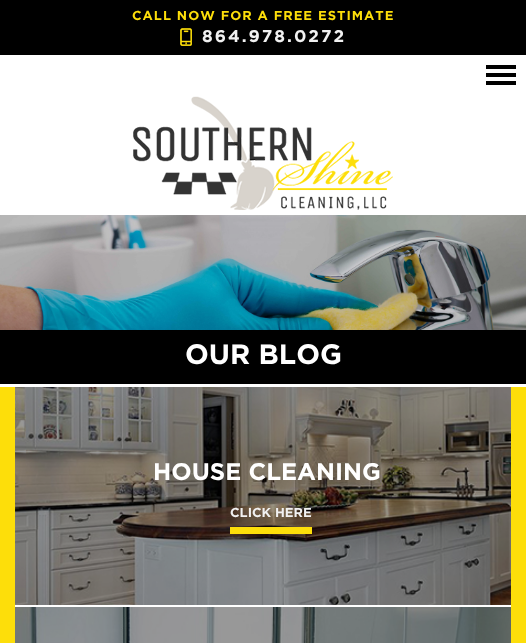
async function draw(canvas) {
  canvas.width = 526;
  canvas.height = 643;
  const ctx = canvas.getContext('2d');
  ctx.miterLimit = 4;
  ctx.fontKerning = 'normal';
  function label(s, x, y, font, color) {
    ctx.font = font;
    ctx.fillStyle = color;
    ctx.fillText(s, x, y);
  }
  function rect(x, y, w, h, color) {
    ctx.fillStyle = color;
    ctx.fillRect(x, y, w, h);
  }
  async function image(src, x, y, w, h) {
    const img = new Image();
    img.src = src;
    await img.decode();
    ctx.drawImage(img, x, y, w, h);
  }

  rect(0, 0, 526, 643, '#fff');
  rect(0, 0, 526, 55, '#000');
  ctx.letterSpacing = '1px';
  label('CALL NOW FOR A FREE ESTIMATE', 132, 20, 'bold 13px Gotham', '#fdde0a');
  await image('assets/img1.png', 180, 28, 12, 18);
  ctx.letterSpacing = '2px';
  label('864.978.0272', 202, 42, 'bold 17px Gotham', '#f1f1f1');
  rect(486, 65, 30, 4, '#000');
  rect(486, 73, 30, 4, '#000');
  rect(486, 81, 30, 4, '#000');
  await image('assets/img2.png', 133, 96, 260, 114);
  await image('assets/img3.png', 0, 215, 526, 115);
  rect(0, 330, 526, 54, '#000');
  ctx.letterSpacing = '0px';
  label('OUR BLOG', 185, 364, 'bold 28px Gotham', '#fff');
  rect(0, 387, 526, 256, '#fdde0a');
  await image('assets/img4.png', 15, 387, 496, 218);
  rect(15, 605, 496, 2, '#fff');
  label('HOUSE CLEANING', 153, 480, 'bold 24px Gotham', '#fff');
  rect(230, 527, 82, 7, '#fdde0a');
  label('CLICK HERE', 230, 517, 'bold 13px Gotham', '#f1f1f1');
  await image('assets/img5.png', 15, 607, 496, 36);
}

draw(document.querySelector('canvas'));
